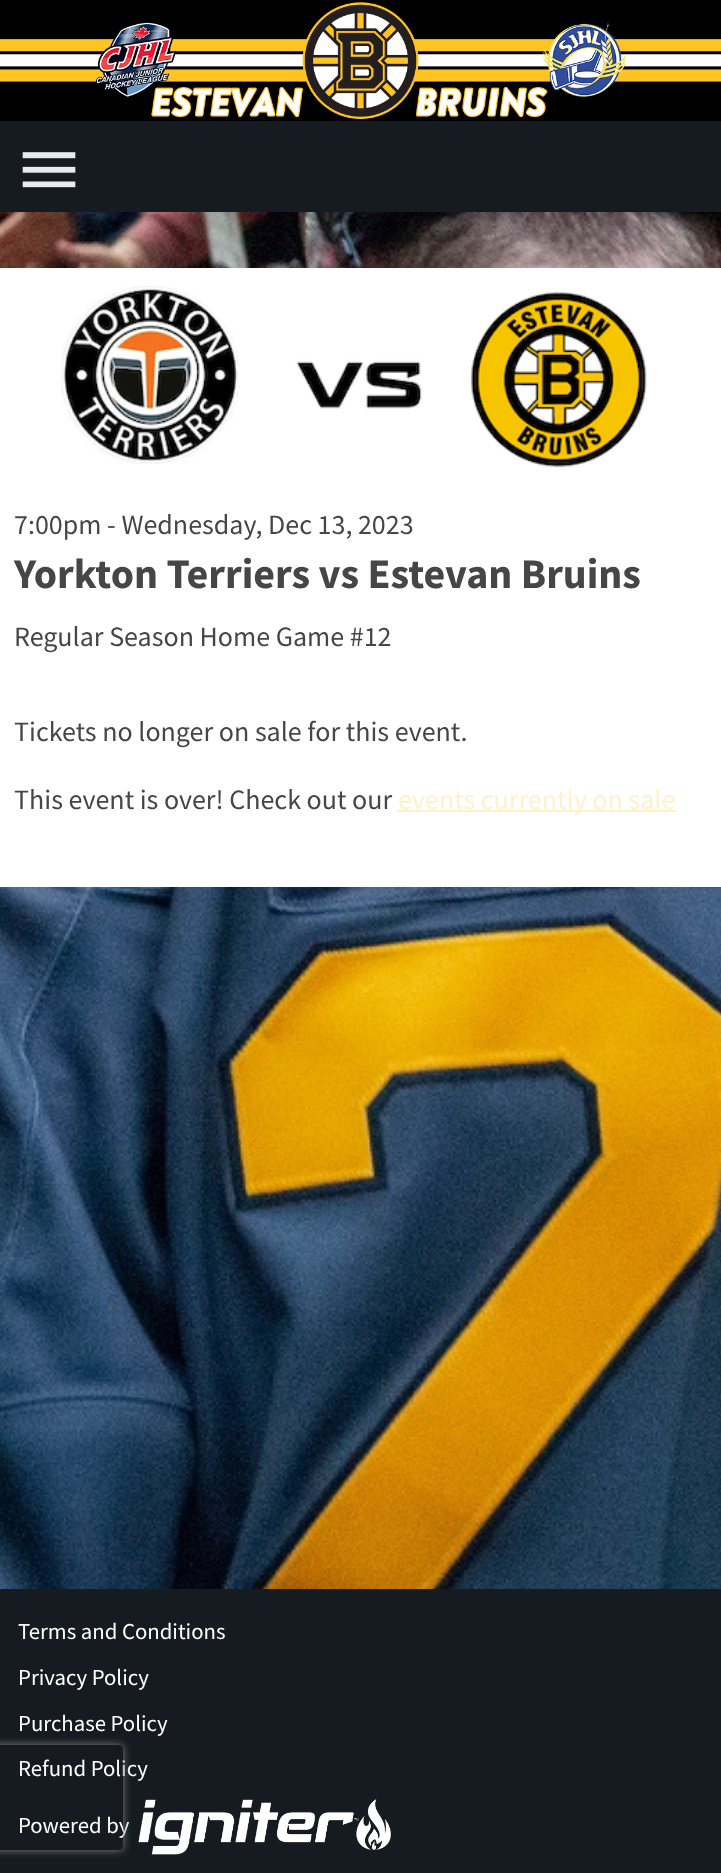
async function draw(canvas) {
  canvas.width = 721;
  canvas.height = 1873;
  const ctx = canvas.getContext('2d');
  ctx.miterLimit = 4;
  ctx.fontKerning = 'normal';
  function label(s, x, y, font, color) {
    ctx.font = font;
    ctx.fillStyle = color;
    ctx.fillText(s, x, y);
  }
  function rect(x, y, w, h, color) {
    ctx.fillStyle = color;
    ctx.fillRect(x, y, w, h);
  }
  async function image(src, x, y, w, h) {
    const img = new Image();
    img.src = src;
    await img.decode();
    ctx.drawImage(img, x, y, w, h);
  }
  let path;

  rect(0, 0, 721, 1873, '#fff');
  await image('assets/img1.png', 0, 212, 721, 1377);
  rect(0, 0, 721, 121, '#000');
  await image('assets/img2.png', 0, 2, 721, 117);
  ctx.fillStyle = '#00000033';
  ctx.filter = 'blur(17.5px)';
  ctx.beginPath();
  ctx.rect(35, 191, 651, 21);
  ctx.fill();
  ctx.filter = 'none';
  rect(0, 121, 721, 91, '#161b22');
  await image('assets/img3.png', 22, 152, 54, 36);
  rect(0, 268, 721, 619, '#fff');
  await image('assets/img4.png', 61, 286, 586, 182);
  label('7:00pm - Wednesday, Dec 13, 2023', 14, 534, '28px Source Sans Pro', '#464646');
  label('Yorkton Terriers vs Estevan Bruins', 14, 588, 'bold 42px Source Sans Pro', '#464646');
  label('Regular Season Home Game #12', 14, 646, '28px Source Sans Pro', '#464646');
  label('Tickets no longer on sale for this event.', 14, 741, '28px Source Sans Pro', '#464646');
  label('This event is over! Check out our', 14, 809, '28px Source Sans Pro', '#464646');
  rect(397, 810, 279, 2, '#fff1cc');
  label('events currently on sale', 398, 809, '28px Source Sans Pro', '#fff1cc');
  rect(0, 1589, 721, 284, '#161b22');
  label('Terms and Conditions', 18, 1639, '22.75px Source Sans Pro', '#fff');
  label('Privacy Policy', 18, 1685, '22.75px Source Sans Pro', '#fff');
  label('Purchase Policy', 18, 1731, '22.75px Source Sans Pro', '#fff');
  label('Refund Policy', 18, 1776, '22.75px Source Sans Pro', '#fff');
  label('Powered by', 18, 1833, '22.75px Source Sans Pro', '#fff');
  await image('assets/img5.png', 138, 1799, 253, 56);
  ctx.save();
  path = new Path2D('M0 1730H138V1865H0ZM-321 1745H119C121 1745 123 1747 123 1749V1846C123 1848 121 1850 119 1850H-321C-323 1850-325 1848-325 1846V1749C-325 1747-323 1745-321 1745Z');
  ctx.clip(path, 'evenodd');
  ctx.fillStyle = '#808080';
  ctx.filter = 'blur(4.5px)';
  ctx.beginPath();
  ctx.roundRect(-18, 1745, 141, 105, 4);
  ctx.fill();
  ctx.filter = 'none';
  ctx.restore();
}

draw(document.querySelector('canvas'));
